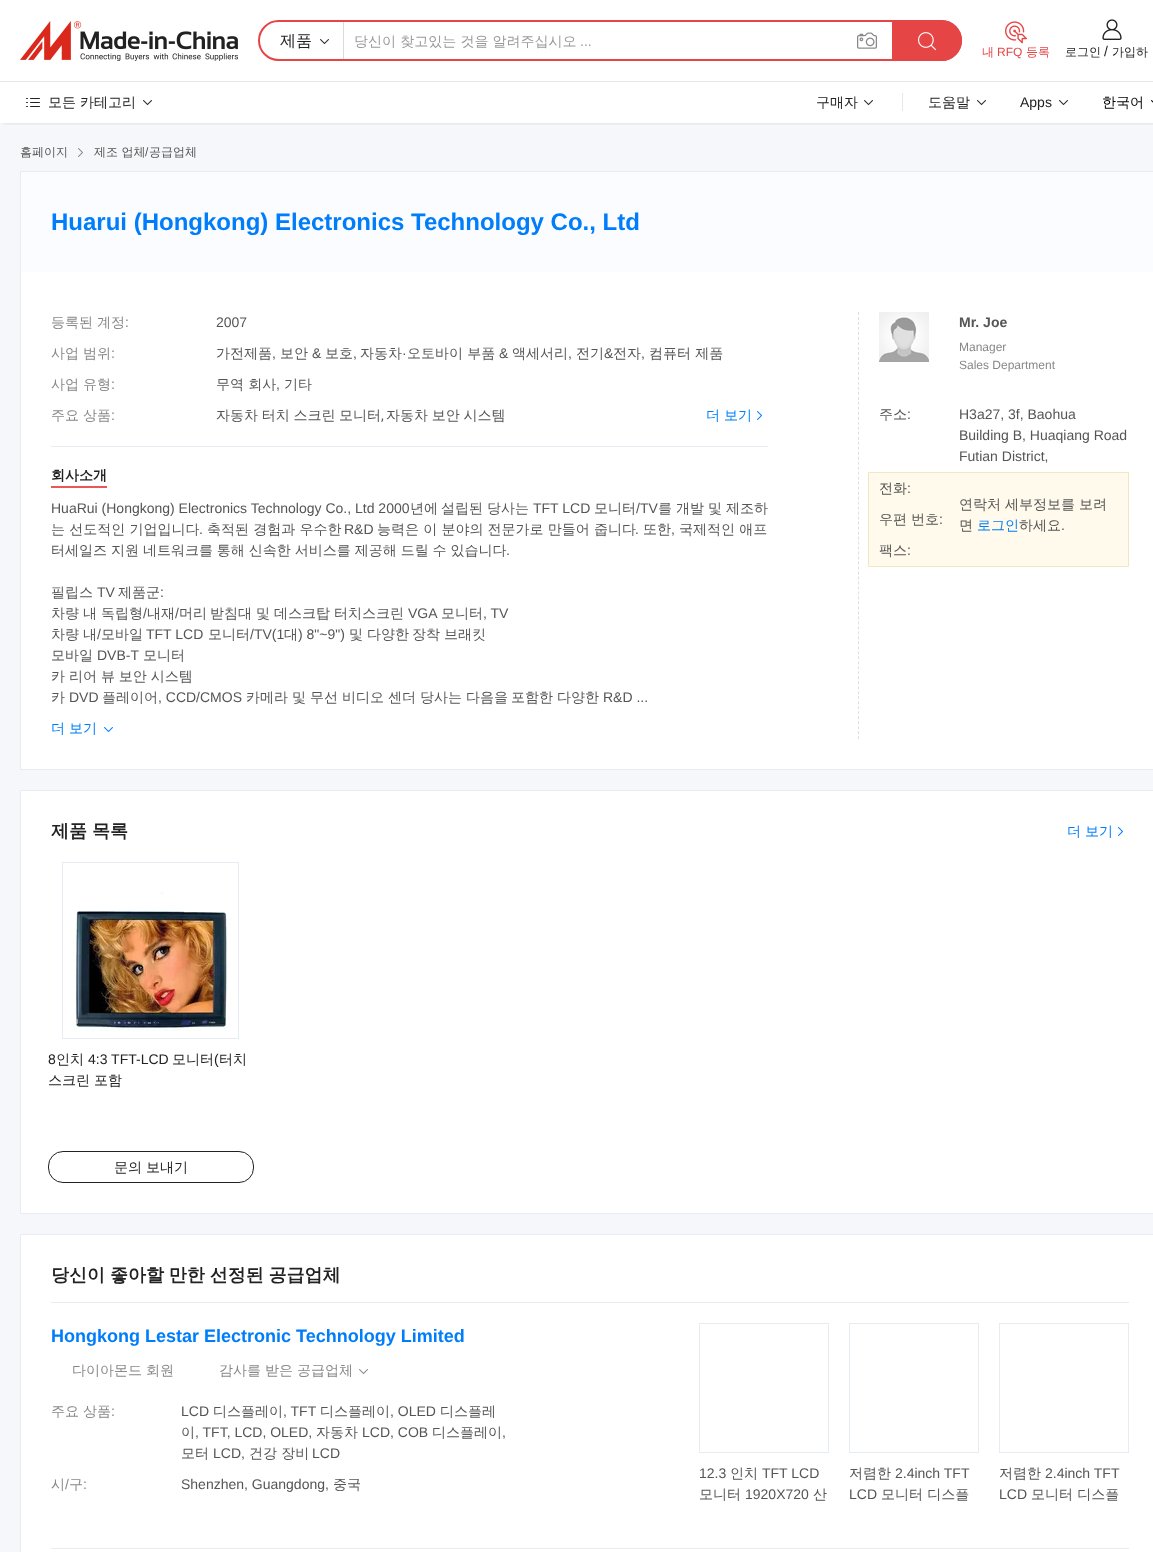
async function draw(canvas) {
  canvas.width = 1153;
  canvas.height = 1552;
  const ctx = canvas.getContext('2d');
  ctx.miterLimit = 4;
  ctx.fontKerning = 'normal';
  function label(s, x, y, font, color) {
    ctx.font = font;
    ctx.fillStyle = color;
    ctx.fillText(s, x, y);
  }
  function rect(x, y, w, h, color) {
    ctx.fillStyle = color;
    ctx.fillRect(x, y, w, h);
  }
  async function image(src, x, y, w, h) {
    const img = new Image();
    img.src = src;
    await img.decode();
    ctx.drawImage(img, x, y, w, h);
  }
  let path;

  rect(0, 0, 1153, 1552, '#fff');
  rect(0, 123, 1153, 1429, '#f5f7fa');
  ctx.save();
  ctx.beginPath();
  ctx.rect(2, 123, 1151, 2);
  ctx.clip();
  ctx.fillStyle = '#0000001f';
  ctx.filter = 'blur(2.5px)';
  ctx.beginPath();
  ctx.rect(3, 6, 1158, 117);
  ctx.fill();
  ctx.filter = 'none';
  ctx.restore();
  await image('assets/img1.png', 20, 21, 218, 40);
  ctx.beginPath();
  ctx.roundRect(259, 21, 702, 39, 19.5);
  ctx.strokeStyle = '#e64545';
  ctx.lineWidth = 2;
  ctx.stroke();
  rect(343, 22, 1, 37, '#dadada');
  label('제품', 280, 46, '500 16px WenQuanYi Zen Hei', '#222');
  await image('assets/img2.png', 320, 39, 9, 5);
  label('당신이 찾고있는 것을 알려주십시오', 354, 46, '500 14px WenQuanYi Zen Hei', '#999');
  label('...', 580, 46, '14px Liberation Sans', '#999');
  await image('assets/img3.png', 857, 32, 20, 17);
  ctx.fillStyle = '#e64545';
  ctx.beginPath();
  ctx.roundRect(892, 20, 70, 41, [0, 20.5, 20.5, 0]);
  ctx.fill();
  await image('assets/img4.png', 918, 32, 18, 19);
  await image('assets/img5.png', 1005, 21, 22, 23);
  label('내', 982, 56, '500 12px WenQuanYi Zen Hei', '#e64545');
  label('RFQ', 997, 56, '12px Liberation Sans', '#e64545');
  label('등록', 1026, 56, '500 12px WenQuanYi Zen Hei', '#e64545');
  await image('assets/img6.png', 1102, 19, 20, 21);
  label('로그인', 1065, 56, '500 12px WenQuanYi Zen Hei', '#222');
  label('/', 1104, 56, '14px Liberation Sans', '#222');
  label('가입하', 1112, 56, '500 12px WenQuanYi Zen Hei', '#222');
  rect(0, 81, 1153, 1, '#e6e7eb');
  await image('assets/img7.png', 26, 98, 14, 9);
  ctx.wordSpacing = '-0.25px';
  label('모든 카테고리', 48, 107, '500 14px WenQuanYi Zen Hei', '#222');
  await image('assets/img2.png', 143, 100, 9, 5);
  ctx.wordSpacing = '0px';
  label('구매자', 816, 107, '500 14px WenQuanYi Zen Hei', '#222');
  await image('assets/img2.png', 864, 100, 9, 5);
  rect(902, 93, 1, 18, '#e6e7eb');
  label('도움말', 928, 107, '500 14px WenQuanYi Zen Hei', '#222');
  await image('assets/img2.png', 977, 100, 9, 5);
  label('Apps', 1020, 107, '14px Liberation Sans', '#222');
  await image('assets/img2.png', 1059, 100, 9, 5);
  label('한국어', 1102, 107, '500 14px WenQuanYi Zen Hei', '#000');
  await image('assets/img8.png', 1151, 100, 2, 3);
  label('홈페이지', 20, 156, '500 12px WenQuanYi Zen Hei', '#555');
  await image('assets/img9.png', 78, 148, 5, 9);
  label('제조 업체', 94, 156, '500 12px WenQuanYi Zen Hei', '#555');
  label('/', 145, 156, '12px Liberation Sans', '#555');
  label('공급업체', 149, 156, '500 12px WenQuanYi Zen Hei', '#555');
  rect(21, 272, 1132, 497, '#fff');
  ctx.strokeStyle = '#e6ecf2';
  ctx.lineWidth = 1;
  ctx.strokeRect(20.5, 171.5, 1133, 598);
  rect(21, 172, 1132, 100, '#fafcff');
  label('Huarui (Hongkong) Electronics Technology Co., Ltd', 51, 230, 'bold 24px Liberation Sans', '#007dfa');
  path = new Path2D('M858.5 312V739');
  ctx.strokeStyle = '#dae0e6';
  ctx.setLineDash([3, 1.99]);
  ctx.stroke(path);
  ctx.wordSpacing = '-0.25px';
  label('등록된 계정', 51, 327, '500 14px WenQuanYi Zen Hei', '#888');
  ctx.wordSpacing = '0px';
  label(':', 125, 327, '14px Liberation Sans', '#888');
  label('2007', 216, 327, '14px Liberation Sans', '#555');
  ctx.wordSpacing = '-0.25px';
  label('사업 범위', 51, 358, '500 14px WenQuanYi Zen Hei', '#888');
  ctx.wordSpacing = '0px';
  label(':', 111, 358, '14px Liberation Sans', '#888');
  label('가전제품', 216, 358, '500 14px WenQuanYi Zen Hei', '#555');
  label('보안', 280, 358, '500 14px WenQuanYi Zen Hei', '#555');
  label('&', 312, 358, '14px Liberation Sans', '#555');
  label('보호', 325, 358, '500 14px WenQuanYi Zen Hei', '#555');
  label('자동차', 360, 358, '500 14px WenQuanYi Zen Hei', '#555');
  label('·', 402, 358, '14px Liberation Sans', '#555');
  label('오토바이 부품', 407, 358, '500 14px WenQuanYi Zen Hei', '#555');
  label('&', 499, 358, '14px Liberation Sans', '#555');
  label('액세서리', 512, 358, '500 14px WenQuanYi Zen Hei', '#555');
  label('전기', 576, 358, '500 14px WenQuanYi Zen Hei', '#555');
  label('&', 604, 358, '14px Liberation Sans', '#555');
  label('전자', 613, 358, '500 14px WenQuanYi Zen Hei', '#555');
  label('컴퓨터 제품', 649, 358, '500 14px WenQuanYi Zen Hei', '#555');
  label(',', 272, 358, '14px Liberation Sans', '#555');
  label(',', 353, 358, '14px Liberation Sans', '#555');
  label(',', 568, 358, '14px Liberation Sans', '#555');
  label(',', 641, 358, '14px Liberation Sans', '#555');
  ctx.wordSpacing = '-0.25px';
  label('사업 유형', 51, 389, '500 14px WenQuanYi Zen Hei', '#888');
  ctx.wordSpacing = '0px';
  label(':', 111, 389, '14px Liberation Sans', '#888');
  label('무역 회사', 216, 389, '500 14px WenQuanYi Zen Hei', '#555');
  label(',', 276, 389, '14px Liberation Sans', '#555');
  label('기타', 284, 389, '500 14px WenQuanYi Zen Hei', '#555');
  ctx.wordSpacing = '-0.25px';
  label('주요 상품', 51, 420, '500 14px WenQuanYi Zen Hei', '#888');
  ctx.wordSpacing = '0px';
  label(':', 111, 420, '14px Liberation Sans', '#888');
  ctx.wordSpacing = '-0.5px';
  label('자동차 터치 스크린 모니터', 216, 420, '500 14px WenQuanYi Zen Hei', '#555');
  ctx.wordSpacing = '0px';
  label(',', 381, 420, '14px Roboto', '#555');
  ctx.wordSpacing = '-0.5px';
  label('자동차 보안 시스템', 386, 420, '500 14px WenQuanYi Zen Hei', '#555');
  ctx.wordSpacing = '-0.25px';
  label('더 보기', 706, 420, '500 14px WenQuanYi Zen Hei', '#007dfa');
  await image('assets/img10.png', 757, 411, 5, 9);
  rect(51, 446, 717, 1, '#e6ecf2');
  rect(51, 486, 56, 2, '#eb5757');
  ctx.wordSpacing = '0px';
  label('회사소개', 51, 480, 'bold 14px WenQuanYi Zen Hei', '#222');
  label('HuaRui (Hongkong) Electronics Technology Co., Ltd 2000', 51, 513, '14px Liberation Sans', '#555');
  label('년에', 410, 513, '500 14px WenQuanYi Zen Hei', '#555');
  label('설립된', 441, 513, '500 14px WenQuanYi Zen Hei', '#555');
  label('당사는', 487, 513, '500 14px WenQuanYi Zen Hei', '#555');
  label('TFT LCD', 533, 513, '14px Liberation Sans', '#555');
  label('모니터', 594, 513, '500 14px WenQuanYi Zen Hei', '#555');
  label('/TV', 636, 513, '14px Liberation Sans', '#555');
  label('를', 658, 513, '500 14px WenQuanYi Zen Hei', '#555');
  label('개발', 676, 513, '500 14px WenQuanYi Zen Hei', '#555');
  label('및', 708, 513, '500 14px WenQuanYi Zen Hei', '#555');
  label('제조하', 726, 513, '500 14px WenQuanYi Zen Hei', '#555');
  label('는 선도적인 기업입니다', 51, 534, '500 14px WenQuanYi Zen Hei', '#555');
  label('.', 199, 534, '14px Liberation Sans', '#555');
  label('축적된 경험과 우수한', 207, 534, '500 14px WenQuanYi Zen Hei', '#555');
  label('R&D', 344, 534, '14px Liberation Sans', '#555');
  label('능력은 이 분야의 전문가로 만들어 줍니다', 377, 534, '500 14px WenQuanYi Zen Hei', '#555');
  label('.', 635, 534, '14px Liberation Sans', '#555');
  label('또한', 643, 534, '500 14px WenQuanYi Zen Hei', '#555');
  label(',', 671, 534, '14px Liberation Sans', '#555');
  label('국제적인 애프', 679, 534, '500 14px WenQuanYi Zen Hei', '#555');
  ctx.wordSpacing = '-0.25px';
  label('터세일즈 지원 네트워크를 통해 신속한 서비스를 제공해 드릴 수 있습니다', 51, 555, '500 14px WenQuanYi Zen Hei', '#555');
  ctx.wordSpacing = '0px';
  label('.', 506, 555, '14px Liberation Sans', '#555');
  label('필립스', 51, 597, '500 14px WenQuanYi Zen Hei', '#555');
  label('TV', 97, 597, '14px Liberation Sans', '#555');
  label('제품군', 118, 597, '500 14px WenQuanYi Zen Hei', '#555');
  label(':', 160, 597, '14px Liberation Sans', '#555');
  label('차량', 51, 618, '500 14px WenQuanYi Zen Hei', '#555');
  label('내', 83, 618, '500 14px WenQuanYi Zen Hei', '#555');
  label('독립형', 101, 618, '500 14px WenQuanYi Zen Hei', '#555');
  label('/', 143, 618, '14px Liberation Sans', '#555');
  label('내재', 147, 618, '500 14px WenQuanYi Zen Hei', '#555');
  label('/', 175, 618, '14px Liberation Sans', '#555');
  label('머리', 179, 618, '500 14px WenQuanYi Zen Hei', '#555');
  label('받침대', 210, 618, '500 14px WenQuanYi Zen Hei', '#555');
  label('및', 256, 618, '500 14px WenQuanYi Zen Hei', '#555');
  label('데스크탑', 274, 618, '500 14px WenQuanYi Zen Hei', '#555');
  label('터치스크린', 334, 618, '500 14px WenQuanYi Zen Hei', '#555');
  label('VGA', 408, 618, '14px Liberation Sans', '#555');
  label('모니터', 441, 618, '500 14px WenQuanYi Zen Hei', '#555');
  label(', TV', 483, 618, '14px Liberation Sans', '#555');
  label('차량', 51, 639, '500 14px WenQuanYi Zen Hei', '#555');
  label('내', 83, 639, '500 14px WenQuanYi Zen Hei', '#555');
  label('/', 97, 639, '14px Liberation Sans', '#555');
  label('모바일', 101, 639, '500 14px WenQuanYi Zen Hei', '#555');
  label('TFT LCD', 146, 639, '14px Liberation Sans', '#555');
  label('모니터', 208, 639, '500 14px WenQuanYi Zen Hei', '#555');
  label('/TV(1', 250, 639, '14px Liberation Sans', '#555');
  label('대', 284, 639, '500 14px WenQuanYi Zen Hei', '#555');
  label(') 8"~9")', 298, 639, '14px Liberation Sans', '#555');
  label('및', 349, 639, '500 14px WenQuanYi Zen Hei', '#555');
  label('다양한', 367, 639, '500 14px WenQuanYi Zen Hei', '#555');
  label('장착', 412, 639, '500 14px WenQuanYi Zen Hei', '#555');
  label('브래킷', 444, 639, '500 14px WenQuanYi Zen Hei', '#555');
  label('모바일', 51, 660, '500 14px WenQuanYi Zen Hei', '#555');
  label('DVB-T', 97, 660, '14px Liberation Sans', '#555');
  label('모니터', 143, 660, '500 14px WenQuanYi Zen Hei', '#555');
  ctx.wordSpacing = '-0.25px';
  label('카 리어 뷰 보안 시스템', 51, 681, '500 14px WenQuanYi Zen Hei', '#555');
  ctx.wordSpacing = '0px';
  label('카', 51, 702, '500 14px WenQuanYi Zen Hei', '#555');
  label('DVD', 69, 702, '14px Liberation Sans', '#555');
  label('플레이어', 102, 702, '500 14px WenQuanYi Zen Hei', '#555');
  label(', CCD/CMOS', 158, 702, '14px Liberation Sans', '#555');
  label('카메라', 246, 702, '500 14px WenQuanYi Zen Hei', '#555');
  label('및', 292, 702, '500 14px WenQuanYi Zen Hei', '#555');
  label('무선', 310, 702, '500 14px WenQuanYi Zen Hei', '#555');
  label('비디오', 342, 702, '500 14px WenQuanYi Zen Hei', '#555');
  label('센더', 388, 702, '500 14px WenQuanYi Zen Hei', '#555');
  label('당사는', 420, 702, '500 14px WenQuanYi Zen Hei', '#555');
  label('다음을', 466, 702, '500 14px WenQuanYi Zen Hei', '#555');
  label('포함한', 511, 702, '500 14px WenQuanYi Zen Hei', '#555');
  label('다양한', 557, 702, '500 14px WenQuanYi Zen Hei', '#555');
  label('R&D ...', 603, 702, '14px Liberation Sans', '#555');
  ctx.wordSpacing = '-0.25px';
  label('더 보기', 51, 733, '500 14px WenQuanYi Zen Hei', '#007dfa');
  await image('assets/img11.png', 104, 727, 9, 5);
  await image('assets/img12.png', 879, 312, 50, 50);
  ctx.wordSpacing = '0px';
  label('Mr. Joe', 959, 327, 'bold 14px Liberation Sans', '#555');
  label('Manager', 959, 351, '12px Liberation Sans', '#888');
  label('Sales Department', 959, 369, '12px Liberation Sans', '#888');
  label('주소', 879, 419, '500 14px WenQuanYi Zen Hei', '#555');
  label(':', 907, 419, '14px Liberation Sans', '#555');
  label('H3a27, 3f, Baohua', 959, 419, '14px Liberation Sans', '#555');
  label('Building B, Huaqiang Road', 959, 440, '14px Liberation Sans', '#555');
  label('Futian District,', 959, 461, '14px Liberation Sans', '#555');
  ctx.fillStyle = '#fffaeb';
  ctx.beginPath();
  ctx.rect(868.5, 472.5, 260, 94);
  ctx.fill();
  ctx.strokeStyle = '#f2e6c2';
  ctx.setLineDash([]);
  ctx.stroke();
  label('전화', 879, 493, '500 14px WenQuanYi Zen Hei', '#555');
  label(':', 907, 493, '14px Liberation Sans', '#555');
  ctx.wordSpacing = '-0.25px';
  label('우편 번호', 879, 524, '500 14px WenQuanYi Zen Hei', '#555');
  ctx.wordSpacing = '0px';
  label(':', 939, 524, '14px Liberation Sans', '#555');
  label('팩스', 879, 555, '500 14px WenQuanYi Zen Hei', '#555');
  label(':', 907, 555, '14px Liberation Sans', '#555');
  ctx.wordSpacing = '-0.25px';
  label('연락처 세부정보를 보려', 959, 509, '500 14px WenQuanYi Zen Hei', '#555');
  ctx.wordSpacing = '0px';
  label('면', 959, 530, '500 14px WenQuanYi Zen Hei', '#555');
  label('로그인', 977, 530, '500 14px WenQuanYi Zen Hei', '#007dfa');
  label('하세요', 1019, 530, '500 14px WenQuanYi Zen Hei', '#555');
  label('.', 1061, 530, '14px Liberation Sans', '#555');
  ctx.fillStyle = '#fff';
  ctx.beginPath();
  ctx.rect(20.5, 790.5, 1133, 423);
  ctx.fill();
  ctx.strokeStyle = '#e6ecf2';
  ctx.stroke();
  ctx.wordSpacing = '-0.5px';
  label('제품 목록', 51, 837, 'bold 18px WenQuanYi Zen Hei', '#222');
  ctx.wordSpacing = '-0.25px';
  label('더 보기', 1067, 836, '500 14px WenQuanYi Zen Hei', '#007dfa');
  await image('assets/img13.png', 1118, 827, 5, 9);
  ctx.strokeRect(62.5, 862.5, 176, 176);
  await image('assets/img14.png', 71, 892, 160, 139);
  ctx.wordSpacing = '0px';
  label('8', 48, 1064, '14px Liberation Sans', '#222');
  label('인치', 56, 1064, '500 14px WenQuanYi Zen Hei', '#222');
  label('4:3 TFT-LCD', 88, 1064, '14px Liberation Sans', '#222');
  label('모니터', 172, 1064, '500 14px WenQuanYi Zen Hei', '#222');
  label('(', 214, 1064, '14px Liberation Sans', '#222');
  label('터치', 219, 1064, '500 14px WenQuanYi Zen Hei', '#222');
  ctx.wordSpacing = '-0.25px';
  label('스크린 포함', 48, 1085, '500 14px WenQuanYi Zen Hei', '#222');
  ctx.beginPath();
  ctx.roundRect(48.5, 1151.5, 205, 31, 14.5);
  ctx.strokeStyle = '#222';
  ctx.stroke();
  label('문의 보내기', 114, 1172, '500 14px WenQuanYi Zen Hei', '#222');
  ctx.fillStyle = '#fff';
  ctx.beginPath();
  ctx.rect(20.5, 1234.5, 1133, 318);
  ctx.fill();
  ctx.strokeStyle = '#e6ecf2';
  ctx.stroke();
  ctx.wordSpacing = '-0.5px';
  label('당신이 좋아할 만한 선정된 공급업체', 51, 1281, 'bold 18px WenQuanYi Zen Hei', '#222');
  rect(51, 1302, 1078, 1, '#e6ecf2');
  ctx.wordSpacing = '0px';
  label('Hongkong Lestar Electronic Technology Limited', 51, 1342, 'bold 18px Liberation Sans', '#007dfa');
  ctx.wordSpacing = '-0.25px';
  label('다이아몬드 회원', 72, 1375, '500 14px WenQuanYi Zen Hei', '#888');
  label('감사를 받은 공급업체', 219, 1375, '500 14px WenQuanYi Zen Hei', '#888');
  await image('assets/img15.png', 359, 1369, 9, 5);
  label('주요 상품', 51, 1416, '500 14px WenQuanYi Zen Hei', '#888');
  ctx.wordSpacing = '0px';
  label(':', 111, 1416, '14px Liberation Sans', '#888');
  label('LCD', 181, 1416, '14px Liberation Sans', '#555');
  label('디스플레이', 213, 1416, '500 14px WenQuanYi Zen Hei', '#555');
  label(', TFT', 283, 1416, '14px Liberation Sans', '#555');
  label('디스플레이', 320, 1416, '500 14px WenQuanYi Zen Hei', '#555');
  label(', OLED', 390, 1416, '14px Liberation Sans', '#555');
  label('디스플레', 440, 1416, '500 14px WenQuanYi Zen Hei', '#555');
  label('이', 181, 1437, '500 14px WenQuanYi Zen Hei', '#555');
  label(', TFT, LCD, OLED,', 195, 1437, '14px Liberation Sans', '#555');
  label('자동차', 316, 1437, '500 14px WenQuanYi Zen Hei', '#555');
  label('LCD, COB', 362, 1437, '14px Liberation Sans', '#555');
  label('디스플레이', 432, 1437, '500 14px WenQuanYi Zen Hei', '#555');
  label(',', 502, 1437, '14px Liberation Sans', '#555');
  label('모터', 181, 1458, '500 14px WenQuanYi Zen Hei', '#555');
  label('LCD,', 213, 1458, '14px Liberation Sans', '#555');
  label('건강 장비', 249, 1458, '500 14px WenQuanYi Zen Hei', '#555');
  label('LCD', 312, 1458, '14px Liberation Sans', '#555');
  label('시', 51, 1489, '500 14px WenQuanYi Zen Hei', '#888');
  label('/', 65, 1489, '14px Liberation Sans', '#888');
  label('구', 69, 1489, '500 14px WenQuanYi Zen Hei', '#888');
  label(':', 83, 1489, '14px Liberation Sans', '#888');
  label('Shenzhen, Guangdong,', 181, 1489, '14px Liberation Sans', '#555');
  label('중국', 333, 1489, '500 14px WenQuanYi Zen Hei', '#555');
  ctx.strokeRect(699.5, 1323.5, 129, 129);
  label('12.3', 699, 1478, '14px Liberation Sans', '#555');
  label('인치', 730, 1478, '500 14px WenQuanYi Zen Hei', '#555');
  label('TFT LCD', 762, 1478, '14px Liberation Sans', '#555');
  label('모니터', 699, 1499, '500 14px WenQuanYi Zen Hei', '#555');
  label('1920X720', 745, 1499, '14px Liberation Sans', '#555');
  label('산', 813, 1499, '500 14px WenQuanYi Zen Hei', '#555');
  ctx.strokeRect(849.5, 1323.5, 129, 129);
  label('저렴한', 849, 1478, '500 14px WenQuanYi Zen Hei', '#555');
  label('2.4inch TFT', 895, 1478, '14px Liberation Sans', '#555');
  label('LCD', 849, 1499, '14px Liberation Sans', '#555');
  label('모니터 디스플', 881, 1499, '500 14px WenQuanYi Zen Hei', '#555');
  ctx.strokeRect(999.5, 1323.5, 129, 129);
  label('저렴한', 999, 1478, '500 14px WenQuanYi Zen Hei', '#555');
  label('2.4inch TFT', 1045, 1478, '14px Liberation Sans', '#555');
  label('LCD', 999, 1499, '14px Liberation Sans', '#555');
  label('모니터 디스플', 1031, 1499, '500 14px WenQuanYi Zen Hei', '#555');
  rect(51, 1548, 1078, 1, '#e6ecf2');
}

draw(document.querySelector('canvas'));
